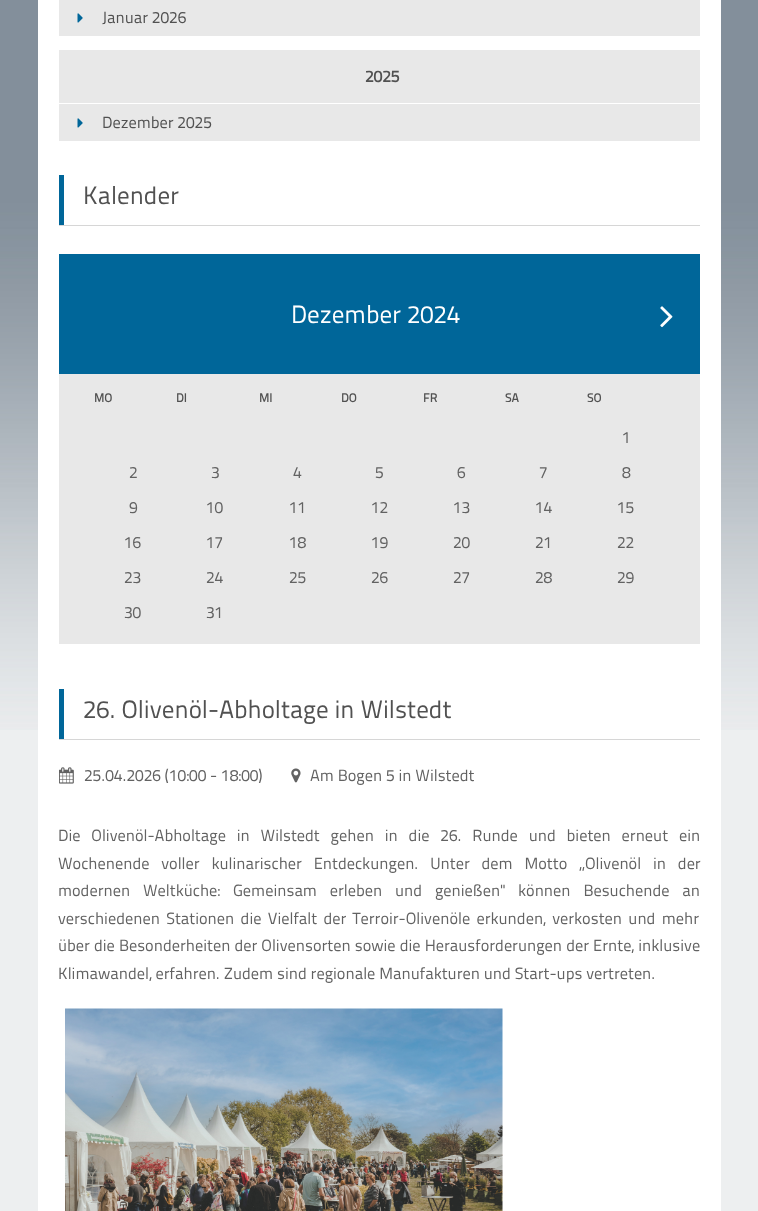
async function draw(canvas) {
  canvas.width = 758;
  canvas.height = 1211;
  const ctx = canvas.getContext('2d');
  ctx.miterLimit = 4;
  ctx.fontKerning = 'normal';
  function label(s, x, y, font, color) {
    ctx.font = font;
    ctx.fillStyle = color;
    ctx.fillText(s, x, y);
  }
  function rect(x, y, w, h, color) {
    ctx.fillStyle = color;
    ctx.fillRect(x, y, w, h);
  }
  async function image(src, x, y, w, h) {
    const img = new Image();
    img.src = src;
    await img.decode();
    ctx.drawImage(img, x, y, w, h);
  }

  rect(0, 0, 758, 1211, '#edeff0');
  await image('assets/img1.png', 0, 0, 758, 730);
  rect(38, 0, 683, 1211, '#fff');
  rect(59, 0, 641, 36, '#e8e8e8');
  await image('assets/img2.png', 77, 13, 6, 10);
  label('Januar 2026', 102, 23, '16.25px "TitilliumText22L"', '#515151');
  rect(59, 50, 641, 53, '#e8e8e8');
  label('2025', 365, 82, 'bold 16.25px "TitilliumText22L"', '#515151');
  rect(59, 104, 641, 37, '#e8e8e8');
  await image('assets/img2.png', 77, 118, 6, 10);
  label('Dezember 2025', 102, 128, '16.25px "TitilliumText22L"', '#515151');
  rect(59, 225, 641, 1, '#d6d6d6');
  rect(59, 175, 5, 50, '#069');
  label('Kalender', 83, 204, '25px "TitilliumText22L"', '#515151');
  rect(59, 374, 641, 270, '#e8e8e8');
  rect(59, 254, 641, 120, '#069');
  label('Dezember 2024', 291, 323, '25px "TitilliumText22L"', '#fff');
  await image('assets/img3.png', 660, 306, 13, 22);
  label('MO', 94, 402, 'bold 12px "TitilliumText22L"', '#515151');
  label('DI', 176, 402, 'bold 12px "TitilliumText22L"', '#515151');
  label('MI', 259, 402, 'bold 12px "TitilliumText22L"', '#515151');
  label('DO', 341, 402, 'bold 12px "TitilliumText22L"', '#515151');
  label('FR', 423, 402, 'bold 12px "TitilliumText22L"', '#515151');
  label('SA', 505, 402, 'bold 12px "TitilliumText22L"', '#515151');
  label('SO', 587, 402, 'bold 12px "TitilliumText22L"', '#515151');
  label('1', 622, 443, '16.25px "TitilliumText22L"', '#626262');
  label('2', 129, 478, '16.25px "TitilliumText22L"', '#626262');
  label('3', 211, 478, '16.25px "TitilliumText22L"', '#626262');
  label('4', 293, 478, '16.25px "TitilliumText22L"', '#626262');
  label('5', 375, 478, '16.25px "TitilliumText22L"', '#626262');
  label('6', 457, 478, '16.25px "TitilliumText22L"', '#626262');
  label('7', 539, 478, '16.25px "TitilliumText22L"', '#626262');
  label('8', 622, 478, '16.25px "TitilliumText22L"', '#626262');
  label('9', 129, 513, '16.25px "TitilliumText22L"', '#626262');
  label('10', 206, 513, '16.25px "TitilliumText22L"', '#626262');
  label('11', 289, 513, '16.25px "TitilliumText22L"', '#626262');
  label('12', 371, 513, '16.25px "TitilliumText22L"', '#626262');
  label('13', 453, 513, '16.25px "TitilliumText22L"', '#626262');
  label('14', 535, 513, '16.25px "TitilliumText22L"', '#626262');
  label('15', 617, 513, '16.25px "TitilliumText22L"', '#626262');
  label('16', 124, 548, '16.25px "TitilliumText22L"', '#626262');
  label('17', 206, 548, '16.25px "TitilliumText22L"', '#626262');
  label('18', 289, 548, '16.25px "TitilliumText22L"', '#626262');
  label('19', 371, 548, '16.25px "TitilliumText22L"', '#626262');
  label('20', 453, 548, '16.25px "TitilliumText22L"', '#626262');
  label('21', 535, 548, '16.25px "TitilliumText22L"', '#626262');
  label('22', 617, 548, '16.25px "TitilliumText22L"', '#626262');
  label('23', 124, 583, '16.25px "TitilliumText22L"', '#626262');
  label('24', 206, 583, '16.25px "TitilliumText22L"', '#626262');
  label('25', 289, 583, '16.25px "TitilliumText22L"', '#626262');
  label('26', 371, 583, '16.25px "TitilliumText22L"', '#626262');
  label('27', 453, 583, '16.25px "TitilliumText22L"', '#626262');
  label('28', 535, 583, '16.25px "TitilliumText22L"', '#626262');
  label('29', 617, 583, '16.25px "TitilliumText22L"', '#626262');
  label('30', 124, 618, '16.25px "TitilliumText22L"', '#626262');
  label('31', 206, 618, '16.25px "TitilliumText22L"', '#626262');
  rect(59, 739, 641, 1, '#d6d6d6');
  rect(59, 689, 5, 50, '#069');
  label('26. Olivenöl-Abholtage in Wilstedt', 83, 718, '25px "TitilliumText22L"', '#515151');
  await image('assets/img4.png', 59, 767, 15, 17);
  label('25.04.2026 (10:00 - 18:00)', 84, 781, '16.25px "TitilliumText22L"', '#626262');
  await image('assets/img5.png', 291, 768, 10, 15);
  label('Am Bogen 5 in Wilstedt', 310, 781, '16.25px "TitilliumText22L"', '#626262');
  ctx.wordSpacing = '7px';
  label('Die Olivenöl-Abholtage in Wilstedt gehen in die 26. Runde und bieten erneut ein', 58, 841, '16.25px "TitilliumText22L"', '#626262');
  ctx.wordSpacing = '8px';
  label('Wochenende voller kulinarischer Entdeckungen. Unter dem Motto „Olivenöl in der', 58, 869, '16.25px "TitilliumText22L"', '#626262');
  ctx.wordSpacing = '9px';
  label('modernen Weltküche: Gemeinsam erleben und genießen" können Besuchende an', 58, 896, '16.25px "TitilliumText22L"', '#626262');
  ctx.wordSpacing = '2.5px';
  label('verschiedenen Stationen die Vielfalt der Terroir-Olivenöle erkunden, verkosten und mehr', 58, 924, '16.25px "TitilliumText22L"', '#626262');
  ctx.wordSpacing = '0.25px';
  label('über die Besonderheiten der Olivensorten sowie die Herausforderungen der Ernte, inklusive', 58, 951, '16.25px "TitilliumText22L"', '#626262');
  ctx.wordSpacing = '0px';
  label('Klimawandel, erfahren. Zudem sind regionale Manufakturen und Start-ups vertreten.', 58, 979, '16.25px "TitilliumText22L"', '#626262');
  await image('assets/img6.png', 65, 1008, 438, 203);
}

draw(document.querySelector('canvas'));
